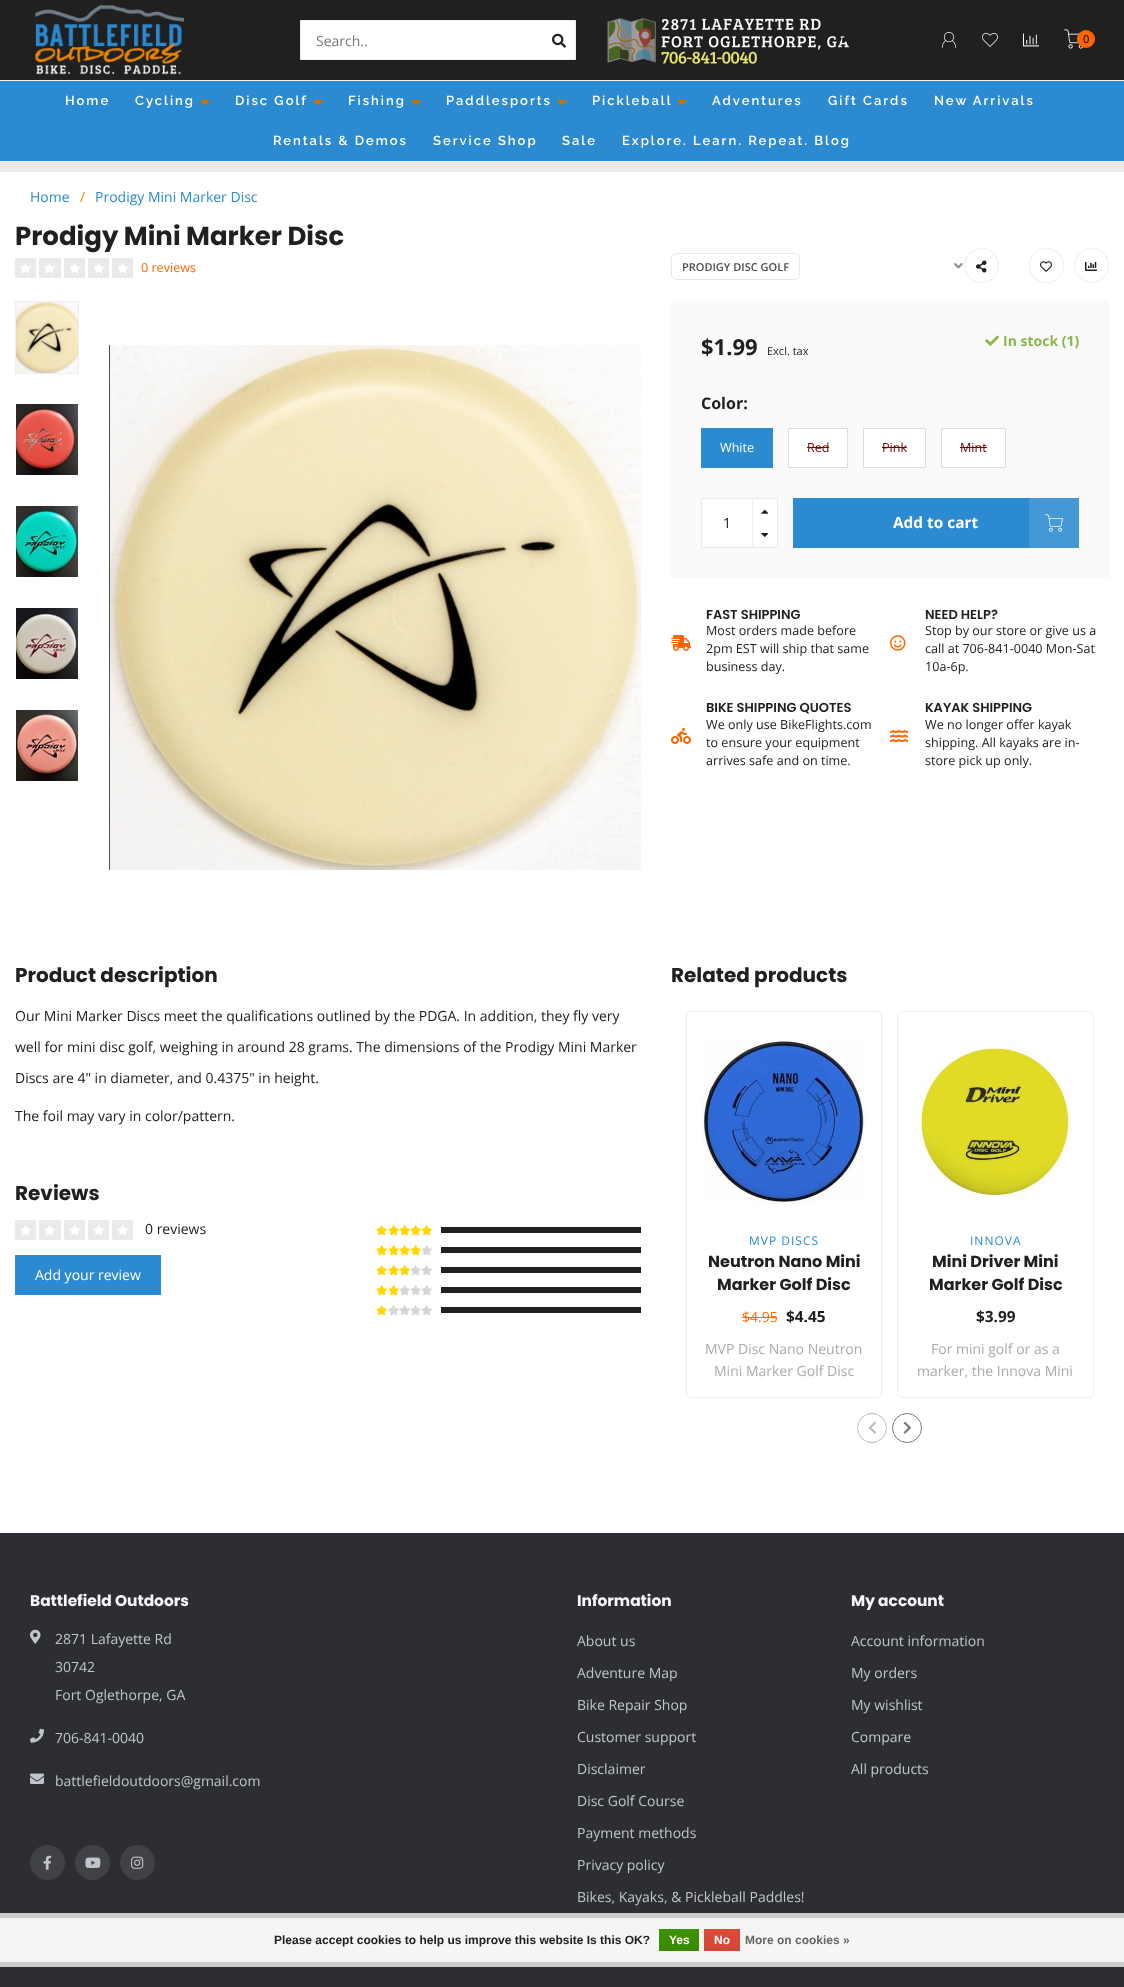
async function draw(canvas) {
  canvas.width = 1124;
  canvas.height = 1987;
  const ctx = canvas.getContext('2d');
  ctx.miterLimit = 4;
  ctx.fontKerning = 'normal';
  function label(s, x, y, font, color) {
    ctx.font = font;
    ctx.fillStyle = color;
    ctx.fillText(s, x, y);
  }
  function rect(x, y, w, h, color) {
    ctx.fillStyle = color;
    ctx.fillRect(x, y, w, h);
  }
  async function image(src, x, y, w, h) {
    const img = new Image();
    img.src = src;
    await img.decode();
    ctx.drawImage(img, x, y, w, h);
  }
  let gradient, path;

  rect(0, 0, 1124, 1987, '#fff');
  rect(0, 0, 1124, 80, '#202020');
  await image('assets/img1.png', 35, 5, 150, 70);
  ctx.fillStyle = '#fff';
  ctx.beginPath();
  ctx.rect(300.5, 20.5, 275, 39);
  ctx.fill();
  ctx.strokeStyle = '#eee';
  ctx.stroke();
  label('Search..', 316, 46, '14px Open Sans', '#757575');
  await image('assets/img2.png', 552, 33, 14, 15);
  await image('assets/img3.png', 607, 18, 242, 46);
  await image('assets/img4.png', 941, 32, 16, 16);
  await image('assets/img5.png', 982, 33, 16, 14);
  await image('assets/img6.png', 1023, 33, 16, 14);
  await image('assets/img7.png', 1064, 29, 19, 20);
  ctx.fillStyle = '#f60';
  ctx.beginPath();
  ctx.arc(1086, 39, 9, 0, 2 * Math.PI);
  ctx.fill();
  label('0', 1083, 43, '11px Open Sans', '#000');
  ctx.fillStyle = '#202020';
  ctx.beginPath();
  ctx.arc(844.5, 39.5, 2.5, 0, 2 * Math.PI);
  ctx.fill();
  rect(0, 81, 1124, 80, '#2c8ad0');
  rect(0, 80, 1124, 1, '#f1f1f1');
  rect(0, 161, 1124, 1, '#f1f1f1');
  ctx.letterSpacing = '2px';
  label('Home', 65, 105, '600 13px Raleway', '#fff');
  label('Cycling', 135, 105, '600 13px Raleway', '#fff');
  await image('assets/img8.png', 200, 100, 10, 6);
  label('Disc Golf', 235, 105, '600 13px Raleway', '#fff');
  await image('assets/img8.png', 313, 100, 10, 6);
  label('Fishing', 348, 105, '600 13px Raleway', '#fff');
  await image('assets/img8.png', 411, 100, 10, 6);
  label('Paddlesports', 446, 105, '600 13px Raleway', '#fff');
  await image('assets/img8.png', 557, 100, 10, 6);
  label('Pickleball', 592, 105, '600 13px Raleway', '#fff');
  await image('assets/img8.png', 677, 100, 10, 6);
  label('Adventures', 712, 105, '600 13px Raleway', '#fff');
  label('Gift Cards', 828, 105, '600 13px Raleway', '#fff');
  label('New Arrivals', 934, 105, '600 13px Raleway', '#fff');
  label('Rentals & Demos', 273, 145, '600 13px Raleway', '#fff');
  label('Service Shop', 433, 145, '600 13px Raleway', '#fff');
  label('Sale', 562, 145, '600 13px Raleway', '#fff');
  label('Explore. Learn. Repeat. Blog', 622, 145, '600 13px Raleway', '#fff');
  rect(0, 162, 1124, 9, '#eaeaea');
  rect(0, 171, 1124, 1, '#eee');
  ctx.letterSpacing = '0px';
  label('Home', 30, 202, '14px Open Sans', '#2c8ad0');
  label('/', 80, 202, '14px Open Sans', '#eb8600');
  label('Prodigy Mini Marker Disc', 95, 202, '14px Open Sans', '#2c8ad0');
  label('Prodigy Mini Marker Disc', 15, 245, 'bold 26px Poppins', '#202020');
  rect(15, 258, 21, 20, '#eaeaea');
  await image('assets/img9.png', 20, 263, 11, 10);
  rect(39, 258, 22, 20, '#eaeaea');
  await image('assets/img9.png', 44, 263, 11, 10);
  rect(64, 258, 21, 20, '#eaeaea');
  await image('assets/img9.png', 69, 263, 11, 10);
  rect(88, 258, 21, 20, '#eaeaea');
  await image('assets/img9.png', 93, 263, 11, 10);
  rect(112, 258, 21, 20, '#eaeaea');
  await image('assets/img9.png', 117, 263, 11, 10);
  label('0 reviews', 141, 272, '12.6px Open Sans', '#f60');
  ctx.beginPath();
  ctx.roundRect(671.5, 253.5, 128, 26, 4.5);
  ctx.strokeStyle = '#e9e9e9';
  ctx.stroke();
  label('PRODIGY DISC GOLF', 682, 271, '600 11px Open Sans', '#4d4d4d');
  await image('assets/img10.png', 954, 263, 9, 6);
  ctx.beginPath();
  ctx.arc(981.5, 265.5, 17, 0, 2 * Math.PI);
  ctx.strokeStyle = '#eee';
  ctx.stroke();
  await image('assets/img11.png', 976, 260, 11, 13);
  ctx.beginPath();
  ctx.arc(1046.5, 265.5, 17, 0, 2 * Math.PI);
  ctx.stroke();
  await image('assets/img12.png', 1040, 261, 12, 11);
  ctx.beginPath();
  ctx.arc(1091.5, 265.5, 17, 0, 2 * Math.PI);
  ctx.stroke();
  await image('assets/img13.png', 1085, 262, 12, 9);
  ctx.strokeRect(15.5, 301.5, 63, 72);
  await image('assets/img14.png', 16, 302, 62, 71);
  await image('assets/img15.png', 16, 404, 62, 71);
  await image('assets/img16.png', 16, 506, 62, 71);
  await image('assets/img17.png', 16, 608, 62, 71);
  await image('assets/img18.png', 16, 710, 62, 71);
  await image('assets/img19.png', 109, 345, 532, 525);
  rect(671, 301, 438, 277, '#fafafa');
  label('$1.99', 701, 355, 'bold 22px Open Sans', '#202020');
  label('Excl. tax', 767, 355, '11px Open Sans', '#202020');
  await image('assets/img20.png', 985, 335, 14, 11);
  label('In stock (1)', 1003, 346, 'bold 14px Open Sans', '#8bb64c');
  label('Color:', 701, 409, 'bold 16px Open Sans', '#202020');
  rect(701, 428, 72, 40, '#2c8ad0');
  label('White', 720, 452, '12.6px Open Sans', '#fff');
  ctx.beginPath();
  ctx.rect(788.5, 428.5, 59, 39);
  ctx.fill();
  ctx.strokeStyle = '#ddd';
  ctx.stroke();
  label('Red', 807, 452, '12.6px Open Sans', '#730000');
  rect(807, 447, 22, 1, '#730000');
  ctx.fillStyle = '#fff';
  ctx.beginPath();
  ctx.rect(863.5, 428.5, 62, 39);
  ctx.fill();
  ctx.stroke();
  label('Pink', 882, 452, '12.6px Open Sans', '#730000');
  rect(882, 447, 25, 1, '#730000');
  ctx.fillStyle = '#fff';
  ctx.beginPath();
  ctx.rect(941.5, 428.5, 64, 39);
  ctx.fill();
  ctx.stroke();
  label('Mint', 960, 452, '12.6px Open Sans', '#730000');
  rect(960, 447, 27, 1, '#730000');
  ctx.strokeStyle = '#eaeaea';
  ctx.strokeRect(701.5, 498.5, 76, 49);
  rect(702, 499, 75, 48, '#fff');
  label('1', 723, 528, '14px Open Sans', '#202020');
  ctx.fillStyle = '#9b9b9b2b';
  path = new Path2D('M752 524V499H753V523Z');
  ctx.fill(path);
  await image('assets/img21.png', 761, 509, 8, 5);
  rect(752, 522, 1, 25, '#eee');
  await image('assets/img22.png', 761, 533, 8, 4);
  rect(793, 498, 236, 50, '#2c8ad0');
  label('Add to cart', 893, 528, 'bold 15.4px Open Sans', '#fff');
  rect(1029, 498, 50, 50, '#4598d6');
  await image('assets/img23.png', 1045, 514, 18, 18);
  label('FAST SHIPPING', 706, 619, '600 13px Poppins', '#202020');
  label('Most orders made before', 706, 635, '12.6px Open Sans', '#202020');
  await image('assets/img24.png', 671, 635, 20, 16);
  label('2pm EST will ship that same', 706, 653, '12.6px Open Sans', '#202020');
  label('business day.', 706, 671, '12.6px Open Sans', '#202020');
  label('NEED HELP?', 925, 619, '600 13px Poppins', '#202020');
  label('Stop by our store or give us a', 925, 635, '12.6px Open Sans', '#202020');
  await image('assets/img25.png', 890, 635, 16, 16);
  label('call at 706-841-0040 Mon-Sat', 925, 653, '12.6px Open Sans', '#202020');
  label('10a-6p.', 925, 671, '12.6px Open Sans', '#202020');
  label('BIKE SHIPPING QUOTES', 706, 712, '600 13px Poppins', '#202020');
  label('We only use BikeFlights.com', 706, 729, '12.6px Open Sans', '#202020');
  await image('assets/img26.png', 671, 728, 20, 16);
  label('to ensure your equipment', 706, 747, '12.6px Open Sans', '#202020');
  label('arrives safe and on time.', 706, 765, '12.6px Open Sans', '#202020');
  label('KAYAK SHIPPING', 925, 712, '600 13px Poppins', '#202020');
  label('We no longer offer kayak', 925, 729, '12.6px Open Sans', '#202020');
  await image('assets/img27.png', 890, 730, 18, 12);
  label('shipping. All kayaks are in-', 925, 747, '12.6px Open Sans', '#202020');
  label('store pick up only.', 925, 765, '12.6px Open Sans', '#202020');
  label('Product description', 15, 982, 'bold 20px Poppins', '#202020');
  label('Our Mini Marker Discs meet the qualifications outlined by the PDGA. In addition, they fly very', 15, 1021, '14px Open Sans', '#202020');
  label('well for mini disc golf, weighing in around 28 grams. The dimensions of the Prodigy Mini Marker', 15, 1052, '14px Open Sans', '#202020');
  label('Discs are 4" in diameter, and 0.4375" in height.', 15, 1083, '14px Open Sans', '#202020');
  label('The foil may vary in color/pattern.', 15, 1121, '14px Open Sans', '#202020');
  label('Reviews', 15, 1200, 'bold 20px Poppins', '#202020');
  rect(15, 1220, 21, 20, '#eaeaea');
  await image('assets/img9.png', 20, 1225, 11, 10);
  rect(39, 1220, 22, 20, '#eaeaea');
  await image('assets/img9.png', 44, 1225, 11, 10);
  rect(64, 1220, 21, 20, '#eaeaea');
  await image('assets/img9.png', 69, 1225, 11, 10);
  rect(88, 1220, 21, 20, '#eaeaea');
  await image('assets/img9.png', 93, 1225, 11, 10);
  rect(112, 1220, 21, 20, '#eaeaea');
  await image('assets/img9.png', 117, 1225, 11, 10);
  label('0 reviews', 145, 1234, '14px Open Sans', '#202020');
  rect(15, 1255, 146, 40, '#2c8ad0');
  label('Add your review', 35, 1280, '14px Open Sans', '#fff');
  await image('assets/img28.png', 376, 1225, 11, 11);
  await image('assets/img28.png', 388, 1225, 11, 11);
  await image('assets/img28.png', 399, 1225, 11, 11);
  await image('assets/img28.png', 410, 1225, 11, 11);
  await image('assets/img28.png', 421, 1225, 11, 11);
  rect(441, 1227, 200, 6, '#202020');
  await image('assets/img28.png', 376, 1245, 11, 11);
  await image('assets/img28.png', 388, 1245, 11, 11);
  await image('assets/img28.png', 399, 1245, 11, 11);
  await image('assets/img28.png', 410, 1245, 11, 11);
  await image('assets/img29.png', 421, 1245, 11, 11);
  rect(441, 1247, 200, 6, '#202020');
  await image('assets/img28.png', 376, 1265, 11, 11);
  await image('assets/img28.png', 388, 1265, 11, 11);
  await image('assets/img28.png', 399, 1265, 11, 11);
  await image('assets/img29.png', 410, 1265, 11, 11);
  await image('assets/img29.png', 421, 1265, 11, 11);
  rect(441, 1267, 200, 6, '#202020');
  await image('assets/img28.png', 376, 1285, 11, 11);
  await image('assets/img28.png', 388, 1285, 11, 11);
  await image('assets/img29.png', 399, 1285, 11, 11);
  await image('assets/img29.png', 410, 1285, 11, 11);
  await image('assets/img29.png', 421, 1285, 11, 11);
  rect(441, 1287, 200, 6, '#202020');
  await image('assets/img28.png', 376, 1305, 11, 11);
  await image('assets/img29.png', 388, 1305, 11, 11);
  await image('assets/img29.png', 399, 1305, 11, 11);
  await image('assets/img29.png', 410, 1305, 11, 11);
  await image('assets/img29.png', 421, 1305, 11, 11);
  rect(441, 1307, 200, 6, '#202020');
  label('Related products', 671, 982, 'bold 20px Poppins', '#202020');
  ctx.beginPath();
  ctx.roundRect(686.5, 1011.5, 195, 386, 4.5);
  ctx.strokeStyle = '#eee';
  ctx.stroke();
  await image('assets/img30.png', 702, 1039, 164, 166);
  ctx.letterSpacing = '1px';
  label('MVP DISCS', 749, 1245, '12px Open Sans', '#2c8ad0');
  ctx.letterSpacing = '0px';
  label('Neutron Nano Mini', 708, 1267, 'bold 16px Poppins', '#202020');
  label('Marker Golf Disc', 717, 1290, 'bold 16px Poppins', '#202020');
  label('$4.95', 742, 1322, '14px Open Sans', '#f60');
  rect(742, 1317, 35, 1, '#f60');
  label('$4.45', 786, 1322, 'bold 15.4px Open Sans', '#202020');
  label('MVP Disc Nano Neutron', 705, 1354, '14px Open Sans', '#aaa');
  label('Mini Marker Golf Disc', 714, 1376, '14px Open Sans', '#aaa');
  ctx.beginPath();
  ctx.roundRect(897.5, 1011.5, 196, 386, 4.5);
  ctx.stroke();
  await image('assets/img31.png', 920, 1043, 152, 154);
  ctx.letterSpacing = '1px';
  label('INNOVA', 970, 1245, '12px Open Sans', '#2c8ad0');
  ctx.letterSpacing = '0px';
  label('Mini Driver Mini', 932, 1267, 'bold 16px Poppins', '#202020');
  label('Marker Golf Disc', 929, 1290, 'bold 16px Poppins', '#202020');
  label('$3.99', 976, 1322, 'bold 15.4px Open Sans', '#202020');
  label('For mini golf or as a', 931, 1354, '14px Open Sans', '#aaa');
  label('marker, the Innova Mini', 917, 1376, '14px Open Sans', '#aaa');
  ctx.beginPath();
  ctx.arc(872, 1428, 14.5, 0, 2 * Math.PI);
  ctx.strokeStyle = '#bcbcbc';
  ctx.stroke();
  await image('assets/img32.png', 868, 1421, 8, 13);
  ctx.beginPath();
  ctx.arc(907, 1428, 14.5, 0, 2 * Math.PI);
  ctx.strokeStyle = '#797979';
  ctx.stroke();
  await image('assets/img33.png', 903, 1421, 8, 13);
  rect(0, 1533, 1124, 454, '#2c2e33');
  label('Battlefield Outdoors', 30, 1606, 'bold 15.4px Poppins', '#f9f9f9');
  await image('assets/img34.png', 30, 1629, 11, 15);
  label('2871 Lafayette Rd', 55, 1644, '14px Open Sans', '#c1c4ca');
  label('30742', 55, 1672, '14px Open Sans', '#c1c4ca');
  label('Fort Oglethorpe, GA', 55, 1700, '14px Open Sans', '#c1c4ca');
  await image('assets/img35.png', 30, 1728, 14, 15);
  label('706-841-0040', 55, 1743, '14px Open Sans', '#c1c4ca');
  await image('assets/img36.png', 30, 1773, 14, 11);
  label('battlefieldoutdoors@gmail.com', 55, 1786, '14px Open Sans', '#c1c4ca');
  ctx.fillStyle = '#414247';
  ctx.beginPath();
  ctx.arc(47.5, 1862.5, 17.5, 0, 2 * Math.PI);
  ctx.fill();
  await image('assets/img37.png', 43, 1855, 9, 15);
  ctx.beginPath();
  ctx.arc(92.5, 1862.5, 17.5, 0, 2 * Math.PI);
  ctx.fill();
  await image('assets/img38.png', 85, 1857, 16, 11);
  ctx.beginPath();
  ctx.arc(137.5, 1862.5, 17.5, 0, 2 * Math.PI);
  ctx.fill();
  await image('assets/img39.png', 131, 1856, 13, 13);
  label('Information', 577, 1606, 'bold 15.4px Poppins', '#f9f9f9');
  label('About us', 577, 1646, '14px Open Sans', '#c1c4ca');
  label('Adventure Map', 577, 1678, '14px Open Sans', '#c1c4ca');
  label('Bike Repair Shop', 577, 1710, '14px Open Sans', '#c1c4ca');
  label('Customer support', 577, 1742, '14px Open Sans', '#c1c4ca');
  label('Disclaimer', 577, 1774, '14px Open Sans', '#c1c4ca');
  label('Disc Golf Course', 577, 1806, '14px Open Sans', '#c1c4ca');
  label('Payment methods', 577, 1838, '14px Open Sans', '#c1c4ca');
  label('Privacy policy', 577, 1870, '14px Open Sans', '#c1c4ca');
  label('Bikes, Kayaks, & Pickleball Paddles!', 577, 1902, '14px Open Sans', '#c1c4ca');
  label('My account', 851, 1606, 'bold 15.4px Poppins', '#f9f9f9');
  label('Account information', 851, 1646, '14px Open Sans', '#c1c4ca');
  label('My orders', 851, 1678, '14px Open Sans', '#c1c4ca');
  label('My wishlist', 851, 1710, '14px Open Sans', '#c1c4ca');
  label('Compare', 851, 1742, '14px Open Sans', '#c1c4ca');
  label('All products', 851, 1774, '14px Open Sans', '#c1c4ca');
  rect(0, 1918, 1124, 44, '#f5f5f5');
  rect(0, 1913, 1124, 5, '#ccc');
  rect(0, 1962, 1124, 5, '#ccc');
  label('Please accept cookies to help us improve this website Is this OK?', 274, 1944, 'bold 12px Liberation Sans', '#202020');
  gradient = ctx.createLinearGradient(679, 1929, 679, 1951);
  gradient.addColorStop(0, '#3c9300');
  gradient.addColorStop(1, '#398a00');
  ctx.fillStyle = gradient;
  ctx.fillRect(659, 1929, 40, 22);
  label('Yes', 669, 1944, 'bold 12px Liberation Sans', '#fff');
  gradient = ctx.createLinearGradient(722, 1929, 722, 1951);
  gradient.addColorStop(0, '#dc4a38');
  gradient.addColorStop(1, '#d14836');
  ctx.fillStyle = gradient;
  ctx.fillRect(704, 1929, 36, 22);
  label('No', 714, 1944, 'bold 12px Liberation Sans', '#fff');
  label('More on cookies »', 745, 1944, 'bold 12px Liberation Sans', '#666');
}

draw(document.querySelector('canvas'));
